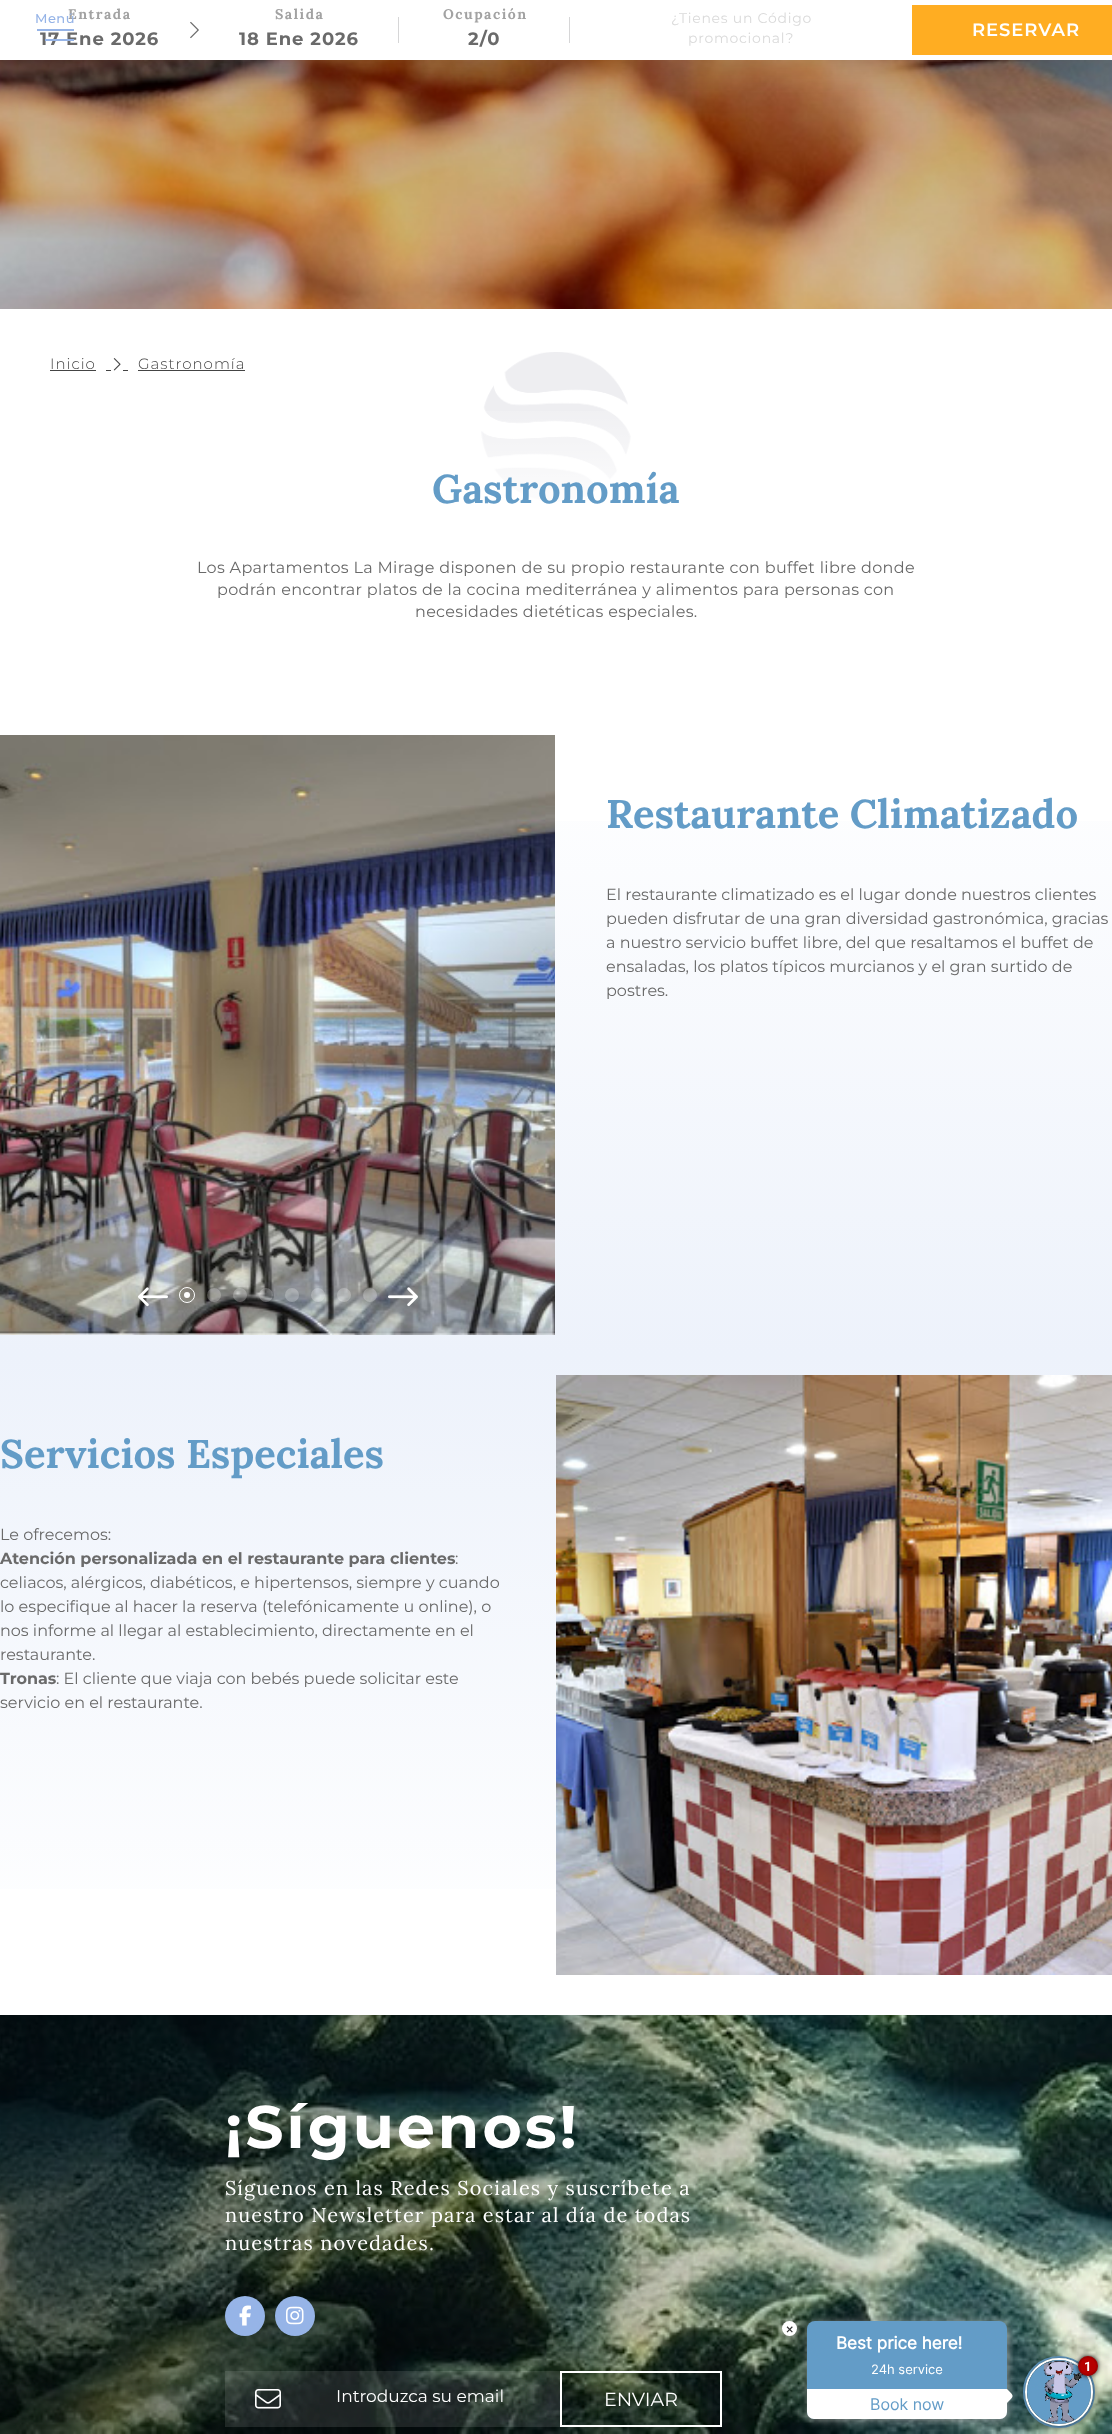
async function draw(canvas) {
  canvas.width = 1112;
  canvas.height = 2434;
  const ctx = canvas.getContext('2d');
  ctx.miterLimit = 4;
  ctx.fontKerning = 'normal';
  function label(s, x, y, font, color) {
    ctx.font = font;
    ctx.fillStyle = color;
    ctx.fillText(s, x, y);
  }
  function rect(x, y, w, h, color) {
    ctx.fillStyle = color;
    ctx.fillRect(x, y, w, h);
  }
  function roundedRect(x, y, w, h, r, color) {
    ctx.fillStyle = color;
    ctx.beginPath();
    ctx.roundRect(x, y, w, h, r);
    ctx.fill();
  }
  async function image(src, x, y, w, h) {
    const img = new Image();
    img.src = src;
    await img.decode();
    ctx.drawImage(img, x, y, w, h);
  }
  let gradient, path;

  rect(0, 0, 1112, 2434, '#fff');
  await image('assets/img2.png', 0, 60, 1112, 249);
  ctx.fillStyle = '#000000bf';
  ctx.filter = 'blur(32.5px)';
  ctx.beginPath();
  ctx.rect(23, 23, 1066, 14);
  ctx.fill();
  ctx.filter = 'none';
  rect(0, 0, 1112, 60, '#fff');
  ctx.letterSpacing = '1.5px';
  label('Entrada', 68, 19, 'bold 14px Lora', '#a2a2a2');
  ctx.letterSpacing = '0.9px';
  label('17 Ene 2026', 40, 45, 'bold 18px Montserrat', '#6a6a6a');
  await image('assets/img1.png', 190, 21, 9, 18);
  ctx.letterSpacing = '1.5px';
  label('Salida', 275, 19, 'bold 14px Lora', '#a2a2a2');
  ctx.letterSpacing = '0.9px';
  label('18 Ene 2026', 239, 45, 'bold 18px Montserrat', '#6a6a6a');
  rect(398, 17, 1, 26, '#d6d6d7');
  ctx.letterSpacing = '1.5px';
  label('Ocupación', 443, 19, 'bold 14px Lora', '#a2a2a2');
  ctx.letterSpacing = '0.9px';
  label('2/0', 468, 45, 'bold 18px Montserrat', '#6a6a6a');
  rect(569, 17, 1, 26, '#d6d6d7');
  ctx.letterSpacing = '0.75px';
  label('¿Tienes un Código', 671, 23, '14px Montserrat', '#dadada');
  label('promocional?', 688, 43, '14px Montserrat', '#dadada');
  rect(912, 5, 200, 50, '#ffad22');
  ctx.letterSpacing = '0.9px';
  label('RESERVAR', 972, 36, '600 18px Montserrat', '#fff');
  ctx.letterSpacing = '0.5px';
  label('Menú', 35, 23, '500 13px Montserrat', '#96b4e7');
  rect(37, 29, 37, 2, '#96b4e7');
  rect(45, 39, 29, 2, '#96b4e7');
  ctx.letterSpacing = '1px';
  label('Inicio', 50, 369, '300 15px Montserrat', '#444');
  rect(50, 370, 46, 1, '#444');
  await image('assets/img3.png', 113, 358, 8, 13);
  label('Gastronomía', 138, 369, '300 15px Montserrat', '#444');
  rect(138, 370, 107, 1, '#444');
  rect(106, 370, 5, 1, '#444');
  rect(123, 370, 5, 1, '#444');
  await image('assets/img4.png', 481, 352, 150, 150);
  gradient = ctx.createLinearGradient(556, 526, 556, 391);
  gradient.addColorStop(0, '#fff');
  gradient.addColorStop(1, '#ffffff00');
  ctx.fillStyle = gradient;
  ctx.fillRect(482, 411, 149, 91);
  ctx.letterSpacing = '0px';
  label('Gastronomía', 432, 503, 'bold 40px Lora', '#639cc7');
  ctx.letterSpacing = '0.32px';
  label('Los Apartamentos La Mirage disponen de su propio restaurante con buffet libre donde', 197, 573, '16px Montserrat', '#6a6a6a');
  label('podrán encontrar platos de la cocina mediterránea y alimentos para personas con', 217, 595, '16px Montserrat', '#6a6a6a');
  label('necesidades dietéticas especiales.', 415, 617, '16px Montserrat', '#6a6a6a');
  gradient = ctx.createLinearGradient(556, 735, 556, 1975);
  gradient.addColorStop(0, '#fff');
  gradient.addColorStop(0.5, '#edf2fb');
  gradient.addColorStop(1, '#fff');
  ctx.fillStyle = gradient;
  ctx.fillRect(0, 821, 1112, 1068);
  await image('assets/img5.png', 0, 735, 555, 600);
  ctx.letterSpacing = '0px';
  label('Restaurante Climatizado', 606, 828, 'bold 40px Lora', '#639cc7');
  label('El restaurante climatizado es el lugar donde nuestros clientes', 606, 900, '16px Montserrat', '#6a6a6a');
  label('pueden disfrutar de una gran diversidad gastronómica, gracias', 606, 924, '16px Montserrat', '#6a6a6a');
  label('a nuestro servicio buffet libre, del que resaltamos el buffet de', 606, 948, '16px Montserrat', '#6a6a6a');
  label('ensaladas, los platos típicos murcianos y el gran surtido de', 606, 972, '16px Montserrat', '#6a6a6a');
  label('postres.', 606, 996, '16px Montserrat', '#6a6a6a');
  await image('assets/img6.png', 138, 1287, 30, 20);
  ctx.beginPath();
  ctx.arc(187, 1295, 7.5, 0, 2 * Math.PI);
  ctx.strokeStyle = '#fff';
  ctx.stroke();
  ctx.fillStyle = '#fff';
  ctx.beginPath();
  ctx.arc(187, 1295, 3, 0, 2 * Math.PI);
  ctx.fill();
  ctx.fillStyle = '#ffffff40';
  ctx.beginPath();
  ctx.arc(214, 1295, 7, 0, 2 * Math.PI);
  ctx.fill();
  ctx.beginPath();
  ctx.arc(240, 1295, 7, 0, 2 * Math.PI);
  ctx.fill();
  ctx.beginPath();
  ctx.arc(266, 1295, 7, 0, 2 * Math.PI);
  ctx.fill();
  ctx.beginPath();
  ctx.arc(292, 1295, 7, 0, 2 * Math.PI);
  ctx.fill();
  ctx.beginPath();
  ctx.arc(318, 1295, 7, 0, 2 * Math.PI);
  ctx.fill();
  ctx.beginPath();
  ctx.arc(344, 1295, 7, 0, 2 * Math.PI);
  ctx.fill();
  ctx.beginPath();
  ctx.arc(370, 1295, 7, 0, 2 * Math.PI);
  ctx.fill();
  await image('assets/img7.png', 388, 1287, 30, 20);
  label('Servicios Especiales', 0, 1468, 'bold 40px Lora', '#639cc7');
  label('Le ofrecemos:', 0, 1540, '16px Montserrat', '#6a6a6a');
  label('Atención personalizada en el restaurante para clientes', 0, 1564, 'bold 16px Montserrat', '#6a6a6a');
  label(':', 455, 1564, '16px Montserrat', '#6a6a6a');
  label('celiacos, alérgicos, diabéticos, e hipertensos, siempre y cuando', 0, 1588, '16px Montserrat', '#6a6a6a');
  label('lo especifique al hacer la reserva (telefónicamente u online), o', 0, 1612, '16px Montserrat', '#6a6a6a');
  label('nos informe al llegar al establecimiento, directamente en el', 0, 1636, '16px Montserrat', '#6a6a6a');
  label('restaurante.', 0, 1660, '16px Montserrat', '#6a6a6a');
  label('Tronas', 0, 1684, 'bold 16px Montserrat', '#6a6a6a');
  label(': El cliente que viaja con bebés puede solicitar este', 56, 1684, '16px Montserrat', '#6a6a6a');
  label('servicio en el restaurante.', 0, 1708, '16px Montserrat', '#6a6a6a');
  await image('assets/img8.png', 556, 1375, 556, 600);
  await image('assets/img9.png', 0, 2015, 1112, 419);
  ctx.letterSpacing = '3px';
  label('¡Síguenos!', 225, 2148, 'bold 60px Montserrat', '#fff');
  ctx.letterSpacing = '1.1px';
  label('Síguenos en las Redes Sociales y suscríbete a', 225, 2195, '20px Lora', '#fff');
  label('nuestro Newsletter para estar al día de todas', 225, 2222, '20px Lora', '#fff');
  label('nuestras novedades.', 225, 2250, '20px Lora', '#fff');
  ctx.fillStyle = '#96b4e7';
  ctx.beginPath();
  ctx.arc(245, 2316, 20, 0, 2 * Math.PI);
  ctx.fill();
  await image('assets/img10.png', 239, 2305, 12, 21);
  ctx.beginPath();
  ctx.arc(295, 2316, 20, 0, 2 * Math.PI);
  ctx.fill();
  await image('assets/img11.png', 286, 2306, 18, 19);
  rect(225, 2371, 335, 56, '#ffffff1c');
  await image('assets/img12.png', 255, 2389, 26, 20);
  ctx.letterSpacing = '0px';
  label('Introduzca su email', 336, 2402, '17px Montserrat', '#fff');
  ctx.lineWidth = 2;
  ctx.strokeRect(561, 2372, 160, 54);
  label('ENVIAR', 604, 2406, '19px Montserrat', '#fff');
  ctx.beginPath();
  ctx.arc(1059, 2392, 35, 0, 2 * Math.PI);
  ctx.strokeStyle = '#639cc7';
  ctx.stroke();
  ctx.fillStyle = '#000';
  ctx.filter = 'blur(5px)';
  ctx.beginPath();
  ctx.roundRect(1029, 2362, 62, 62, 31);
  ctx.fill();
  ctx.filter = 'none';
  ctx.beginPath();
  ctx.arc(1059, 2392, 33, 0, 2 * Math.PI);
  ctx.strokeStyle = '#fff';
  ctx.stroke();
  ctx.fillStyle = '#aaa';
  ctx.filter = 'blur(5px)';
  ctx.beginPath();
  ctx.roundRect(809, 2323, 198, 96, 7);
  ctx.fill();
  ctx.filter = 'none';
  roundedRect(807, 2321, 200, 98, 8, '#639cc7');
  ctx.fillStyle = '#aaa';
  ctx.filter = 'blur(5px)';
  ctx.beginPath();
  ctx.roundRect(784, 2323, 13, 13, 6.5);
  ctx.fill();
  ctx.filter = 'none';
  ctx.fillStyle = '#fff';
  ctx.beginPath();
  ctx.arc(789.5, 2328.5, 7.5, 0, 2 * Math.PI);
  ctx.fill();
  label('×', 786, 2334, '14px Roboto', '#333');
  label('Best price here!', 836, 2349, 'bold 17px Inter', '#fff');
  label('24h service', 871, 2374, '13px Inter', '#fff');
  ctx.beginPath();
  ctx.roundRect(807, 2389, 200, 30, [0, 0, 7, 7]);
  ctx.fill();
  path = new Path2D('M1007 2389C1014.5 2396.5 1014.5 2395.5 1007 2403L1000 2396Z');
  ctx.fill(path);
  label('Book now', 870, 2410, '16px Inter', '#639cc7');
  ctx.beginPath();
  ctx.arc(1059, 2392, 32, 0, 2 * Math.PI);
  ctx.fill();
  await image('assets/img13.png', 1043, 2360, 40, 63);
  ctx.fillStyle = '#000';
  ctx.filter = 'blur(2.5px)';
  ctx.beginPath();
  ctx.roundRect(1078, 2356, 20, 20, 10);
  ctx.fill();
  ctx.filter = 'none';
  ctx.fillStyle = '#b60000';
  ctx.beginPath();
  ctx.arc(1088, 2366, 9, 0, 2 * Math.PI);
  ctx.fill();
  ctx.strokeStyle = '#a30000';
  ctx.stroke();
  label('1', 1084, 2371, 'bold 13px Roboto', '#fff');
}

draw(document.querySelector('canvas'));
